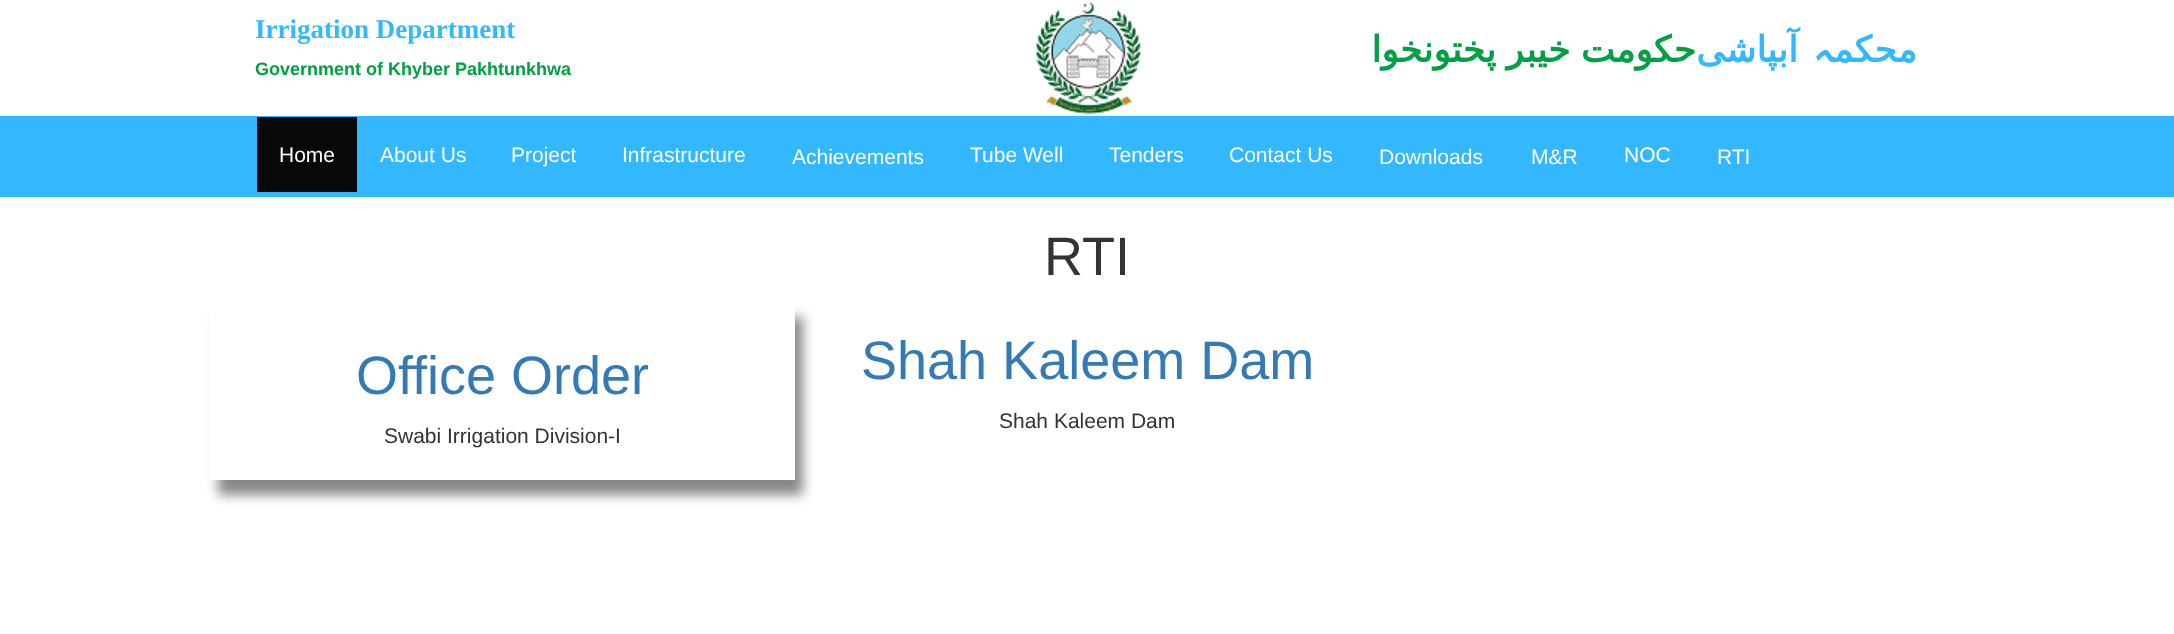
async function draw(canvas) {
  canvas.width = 2174;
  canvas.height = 634;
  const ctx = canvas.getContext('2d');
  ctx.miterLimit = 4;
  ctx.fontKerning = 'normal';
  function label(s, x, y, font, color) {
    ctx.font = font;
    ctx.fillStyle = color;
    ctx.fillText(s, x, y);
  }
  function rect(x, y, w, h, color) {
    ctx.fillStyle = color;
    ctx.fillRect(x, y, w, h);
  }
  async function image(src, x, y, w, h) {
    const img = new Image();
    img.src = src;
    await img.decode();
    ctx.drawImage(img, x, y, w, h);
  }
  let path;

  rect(0, 0, 2174, 634, '#fff');
  label('Irrigation Department', 255, 38, 'bold 27px Liberation Serif', '#33b8ff');
  label('Government of Khyber Pakhtunkhwa', 255, 75, 'bold 18px Liberation Sans', '#02a043');
  await image('assets/img1.png', 1035, 1, 107, 114);
  ctx.wordSpacing = '-1px';
  ctx.direction = 'rtl';
  label('حکومت خیبر پختونخوا', 1696, 62, 'bold 36px DejaVu Sans', '#02a043');
  ctx.wordSpacing = '0px';
  label('آبپاشی', 1798, 62, 'bold 36px DejaVu Sans', '#33b8ff');
  label('‍ہ', 1834, 62, 'bold 36px Cascadia Code', '#33b8ff');
  label('محکم‍', 1917, 62, 'bold 36px DejaVu Sans', '#33b8ff');
  rect(0, 116, 2174, 81, '#33b8ff');
  rect(257, 117, 100, 75, '#080808');
  ctx.direction = 'ltr';
  label('Home', 279, 162, '21px Liberation Sans', '#fff');
  label('About Us', 380, 162, '21px Liberation Sans', '#fff');
  label('Project', 511, 162, '21px Liberation Sans', '#fff');
  label('Infrastructure', 622, 162, '21px Liberation Sans', '#fff');
  label('Achievements', 792, 164, '21px Liberation Sans', '#fff');
  label('Tube Well', 970, 162, '21px Liberation Sans', '#fff');
  label('Tenders', 1109, 162, '21px Liberation Sans', '#fff');
  label('Contact Us', 1229, 162, '21px Liberation Sans', '#fff');
  label('Downloads', 1379, 164, '21px Liberation Sans', '#fff');
  label('M&R', 1531, 164, '21px Liberation Sans', '#fff');
  label('NOC', 1624, 162, '21px Liberation Sans', '#fff');
  label('RTI', 1717, 164, '21px Liberation Sans', '#fff');
  label('RTI', 1044, 275, '54px Liberation Sans', '#333');
  ctx.save();
  path = new Path2D('M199 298H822V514H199ZM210 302H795V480H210Z');
  ctx.clip(path, 'evenodd');
  ctx.fillStyle = '#888';
  ctx.filter = 'blur(6px)';
  ctx.beginPath();
  ctx.rect(218, 317, 585, 178);
  ctx.fill();
  ctx.filter = 'none';
  ctx.restore();
  label('Office Order', 356, 394, '54px Liberation Sans', '#337ab7');
  label('Swabi Irrigation Division-I', 384, 443, '21px Liberation Sans', '#333');
  label('Shah Kaleem Dam', 861, 379, '54px Liberation Sans', '#337ab7');
  label('Shah Kaleem Dam', 999, 428, '21px Liberation Sans', '#333');
}

draw(document.querySelector('canvas'));
